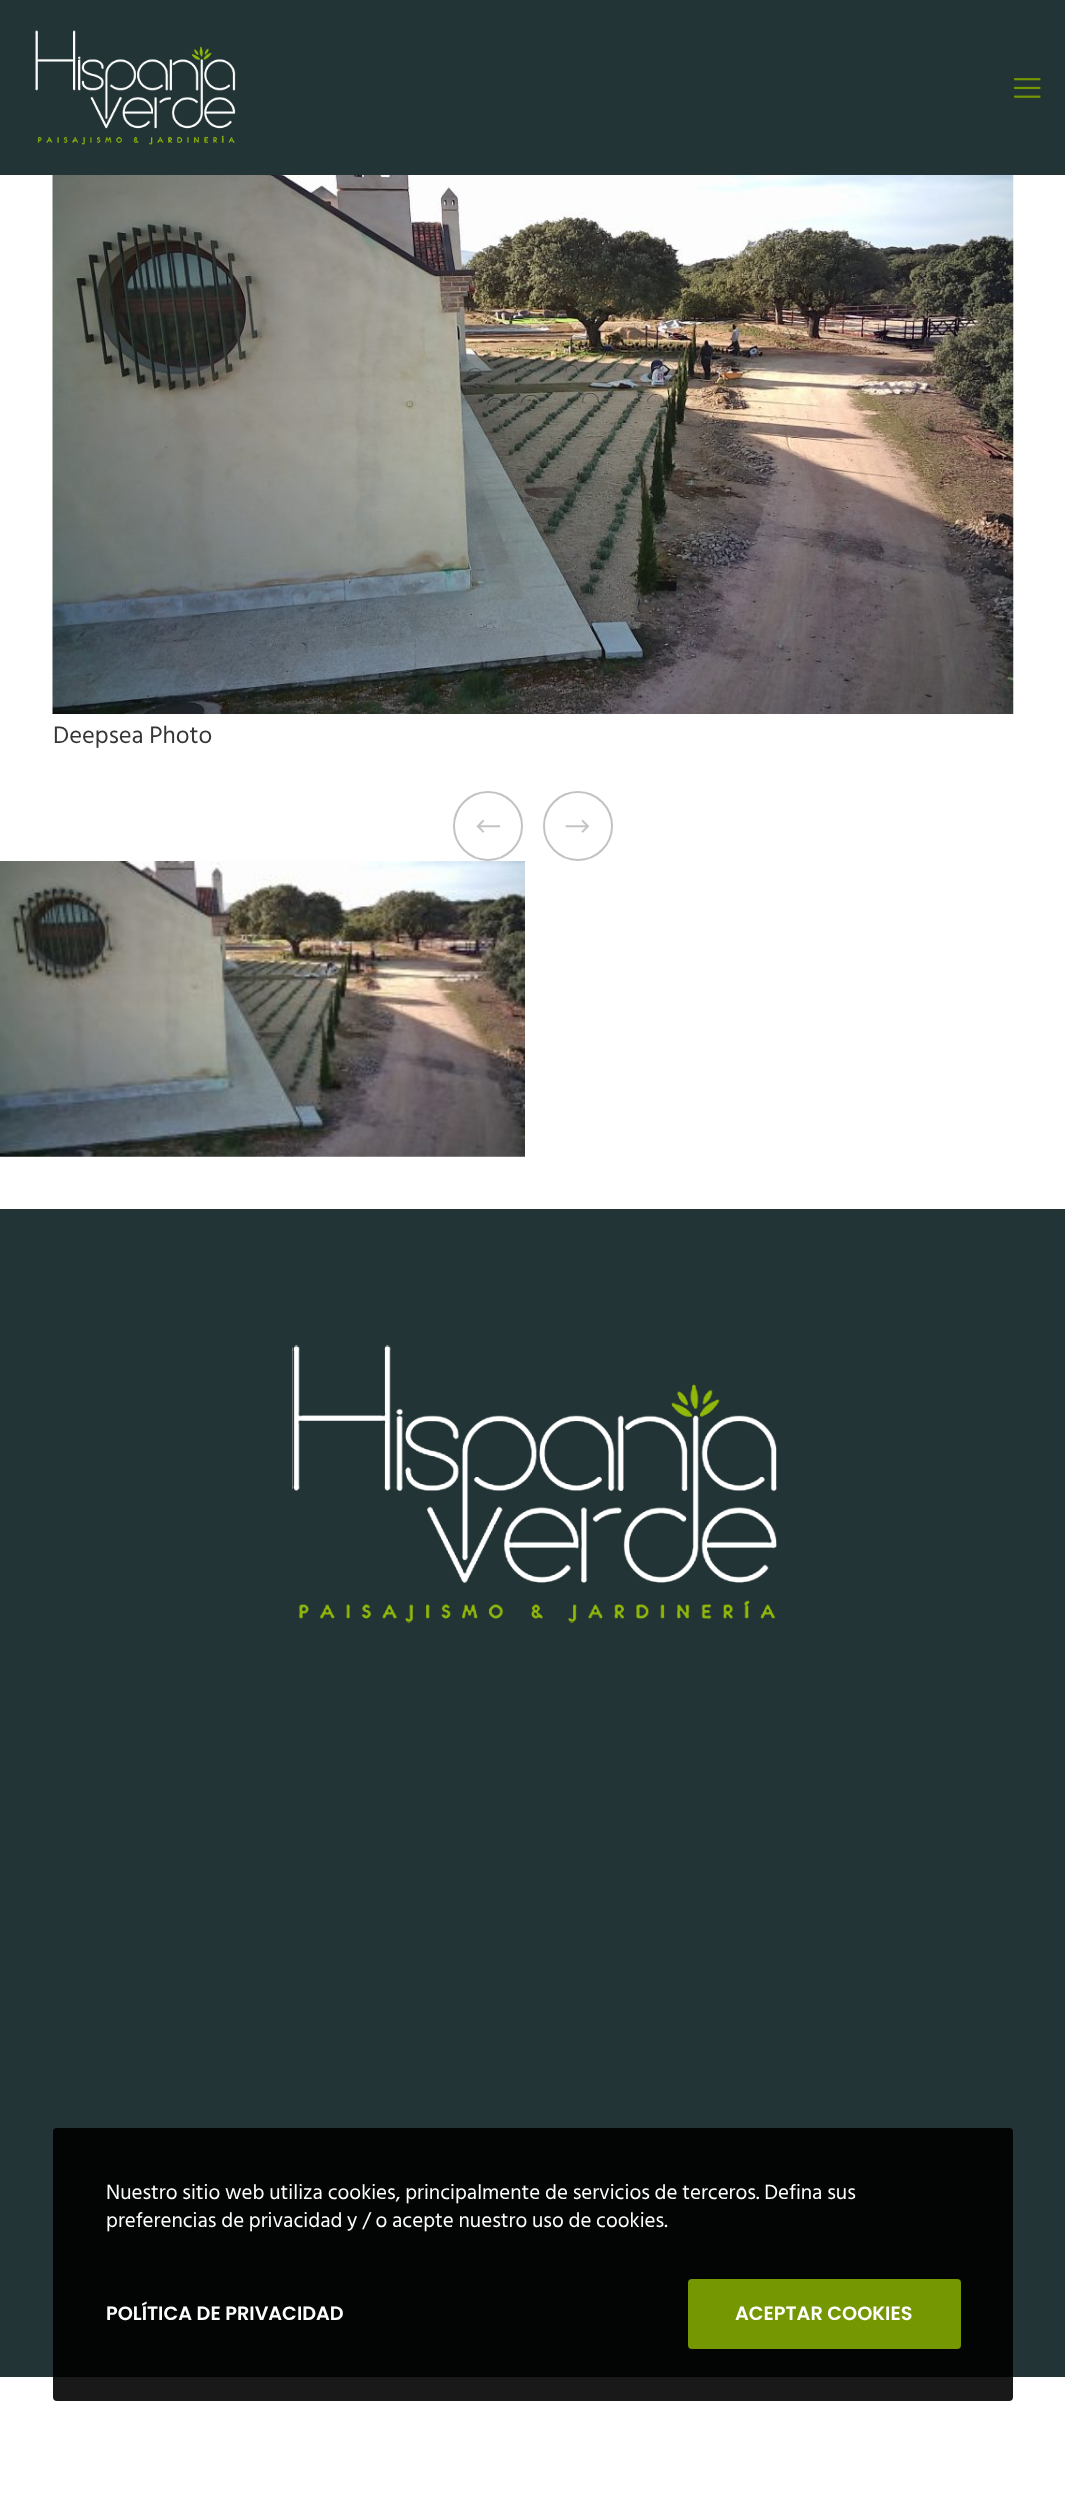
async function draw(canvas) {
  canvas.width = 1065;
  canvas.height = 2500;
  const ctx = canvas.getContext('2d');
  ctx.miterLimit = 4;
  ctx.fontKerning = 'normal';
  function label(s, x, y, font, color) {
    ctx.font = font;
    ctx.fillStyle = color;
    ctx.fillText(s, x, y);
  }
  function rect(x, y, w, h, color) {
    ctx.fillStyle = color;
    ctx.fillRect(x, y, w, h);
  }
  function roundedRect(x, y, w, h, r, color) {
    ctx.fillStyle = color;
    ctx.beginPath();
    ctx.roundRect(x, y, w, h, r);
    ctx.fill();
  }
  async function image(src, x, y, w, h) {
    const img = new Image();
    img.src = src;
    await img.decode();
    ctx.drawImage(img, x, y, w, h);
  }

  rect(0, 0, 1065, 2500, '#fff');
  rect(0, 0, 1065, 175, '#223435');
  await image('assets/img1.png', 35, 30, 201, 115);
  await image('assets/img2.png', 1014, 78, 27, 20);
  await image('assets/img3.png', 52, 175, 962, 539);
  label('Deepsea Photo', 53, 743, '24.5px Hind Siliguri', '#353535');
  ctx.beginPath();
  ctx.arc(488, 826, 34, 0, 2 * Math.PI);
  ctx.strokeStyle = '#c2c2c2';
  ctx.lineWidth = 2;
  ctx.stroke();
  await image('assets/img4.png', 476, 819, 25, 14);
  ctx.beginPath();
  ctx.arc(578, 826, 34, 0, 2 * Math.PI);
  ctx.stroke();
  await image('assets/img5.png', 565, 819, 25, 14);
  await image('assets/img6.png', 0, 861, 525, 296);
  rect(0, 1209, 1065, 1168, '#223435');
  await image('assets/img7.png', 292, 1344, 485, 280);
  roundedRect(53, 2128, 960, 273, 4, '#000000e6');
  label('Nuestro sitio web utiliza cookies, principalmente de servicios de terceros. Defina sus', 106, 2199, '21px Hind Siliguri', '#fff');
  label('preferencias de privacidad y / o acepte nuestro uso de cookies.', 106, 2227, '21px Hind Siliguri', '#fff');
  label('POLÍTICA DE PRIVACIDAD', 106, 2320, '600 19.25px Poppins', '#fff');
  roundedRect(688, 2279, 273, 70, 4, '#759702');
  label('ACEPTAR COOKIES', 735, 2320, '600 19.25px Poppins', '#fff');
}

draw(document.querySelector('canvas'));
